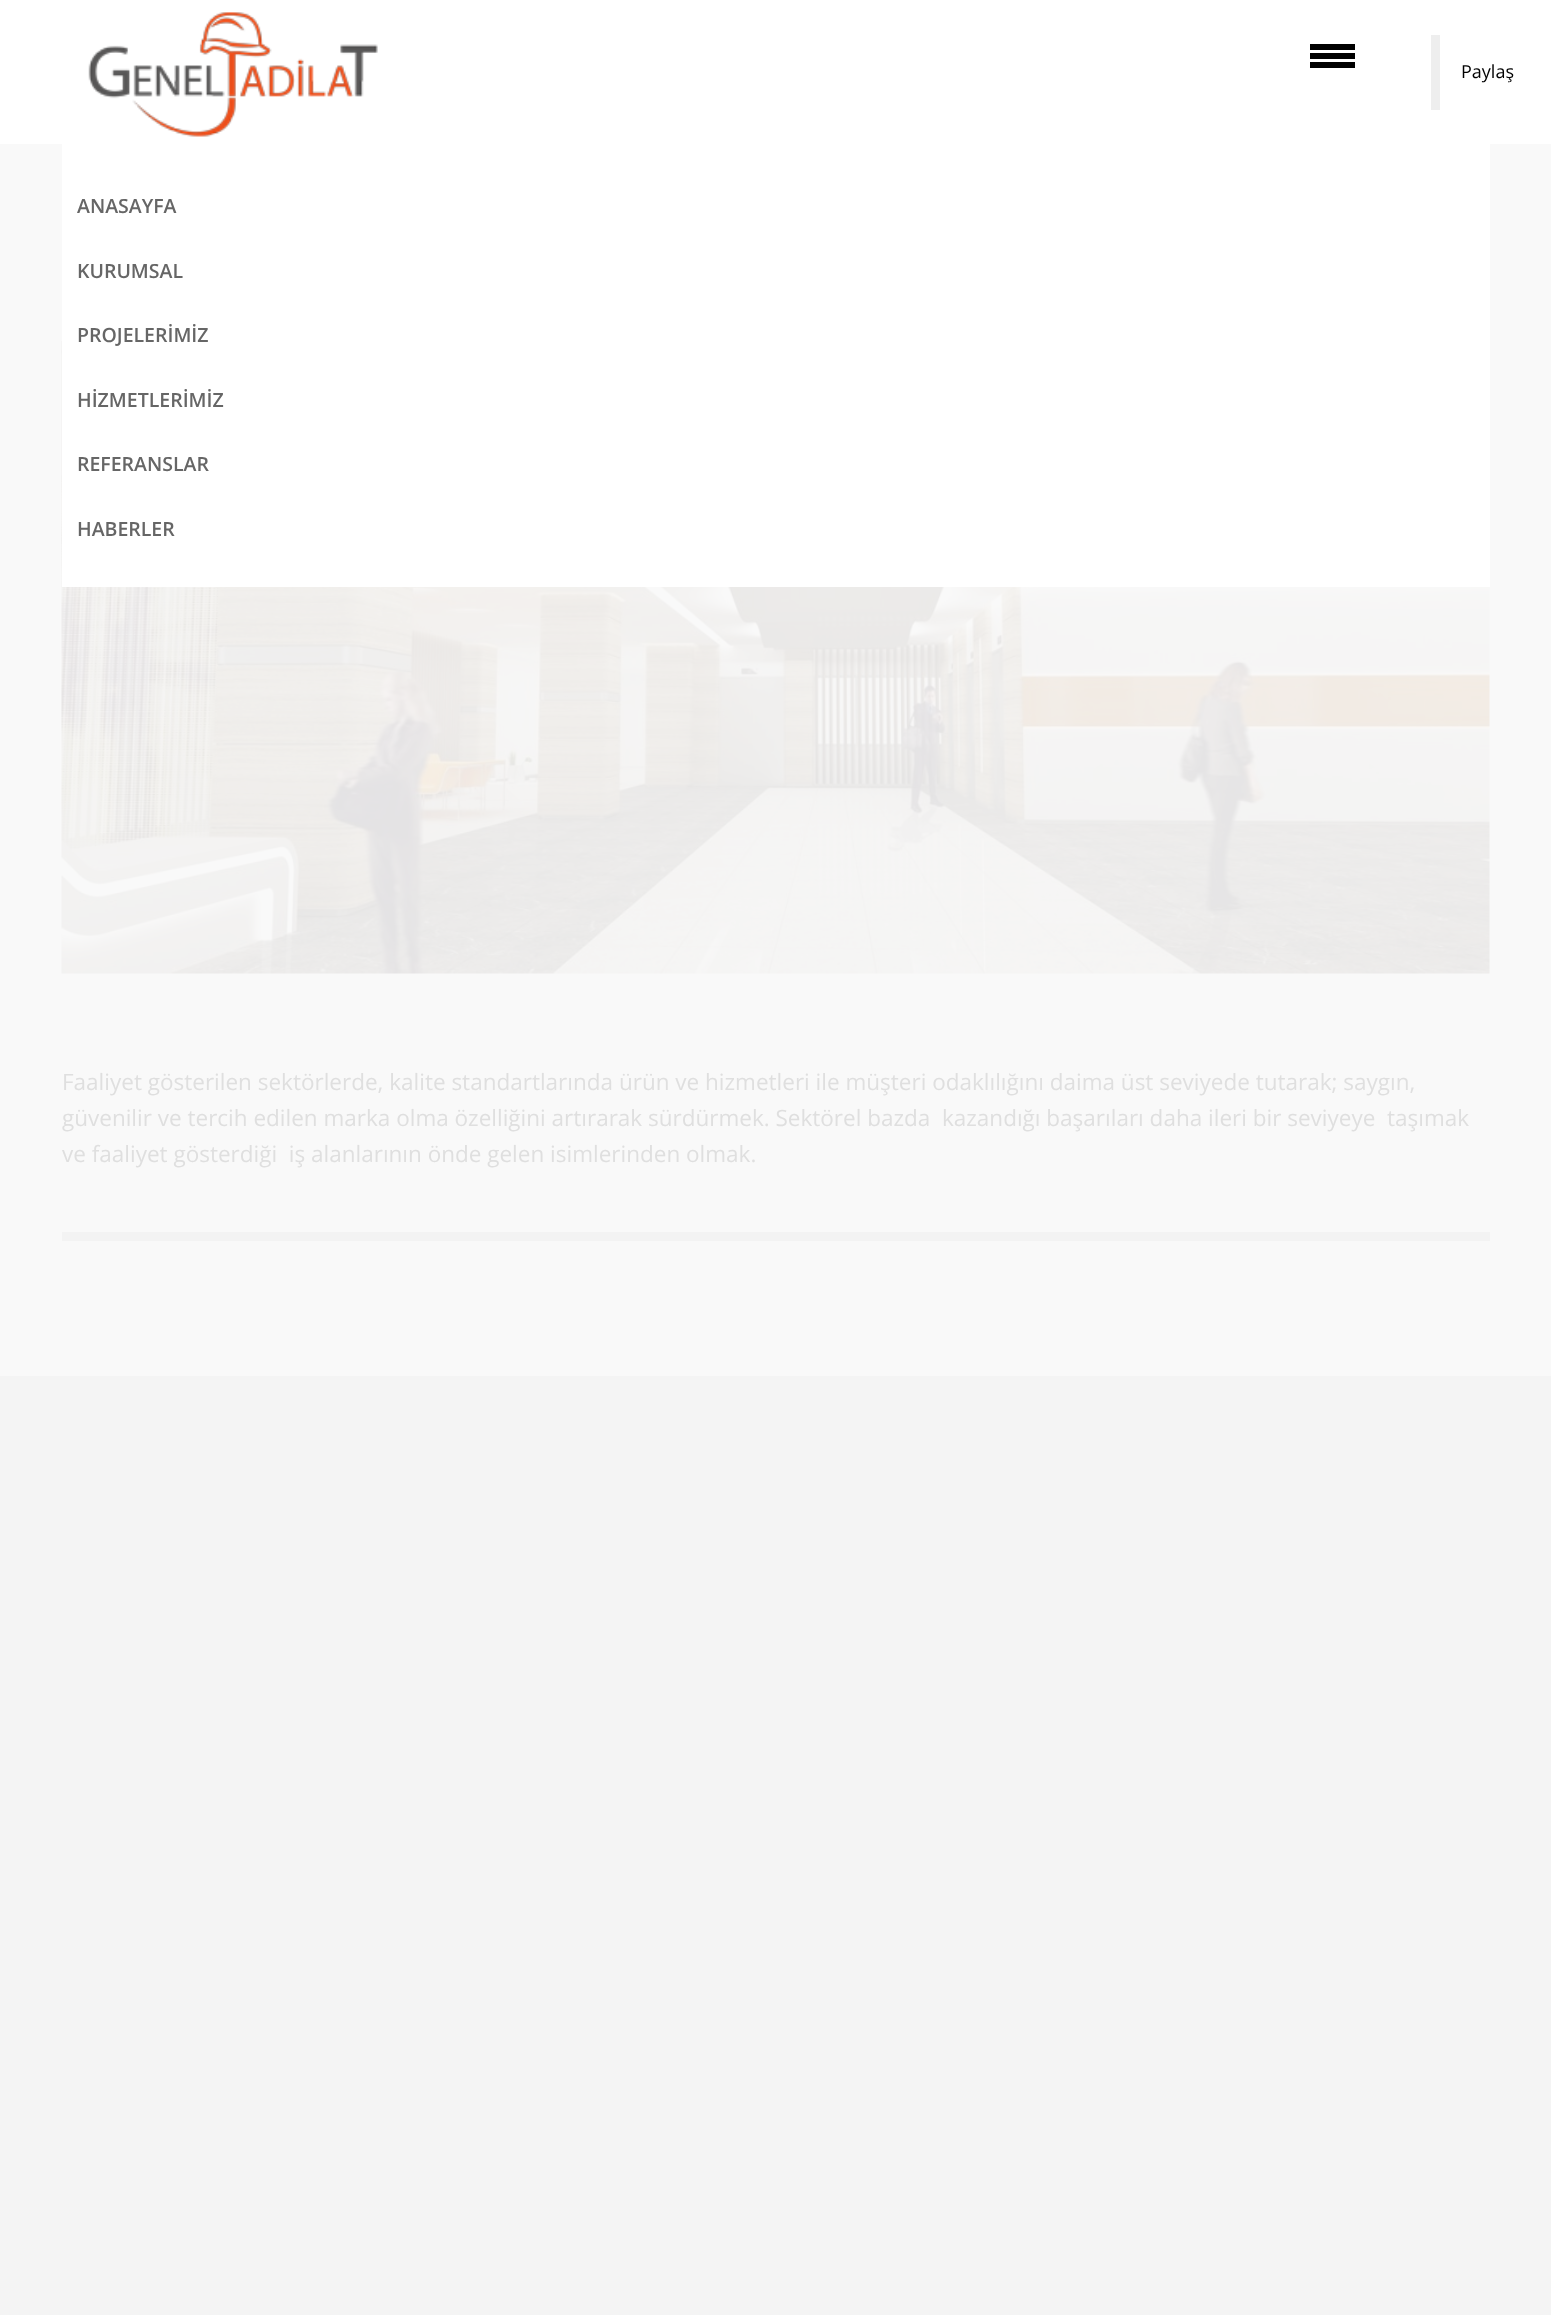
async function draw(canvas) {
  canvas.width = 1551;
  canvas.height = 2315;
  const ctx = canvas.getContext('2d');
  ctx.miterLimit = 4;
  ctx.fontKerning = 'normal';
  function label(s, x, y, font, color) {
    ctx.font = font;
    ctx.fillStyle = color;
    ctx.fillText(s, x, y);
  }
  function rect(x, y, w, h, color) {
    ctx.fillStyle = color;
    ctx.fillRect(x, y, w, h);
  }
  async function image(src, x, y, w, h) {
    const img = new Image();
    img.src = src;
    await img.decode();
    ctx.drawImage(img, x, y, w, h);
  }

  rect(0, 0, 1551, 2315, '#f4f4f4');
  rect(0, 0, 1551, 144, '#fff');
  rect(1431, 35, 9, 75, '#eee');
  label('Paylaş', 1461, 78, '18px Open Sans', '#000');
  await image('assets/img1.png', 88, 12, 290, 125);
  rect(1310, 44, 45, 6, '#000');
  rect(1310, 53, 45, 6, '#000');
  rect(1310, 62, 45, 6, '#000');
  rect(0, 144, 1551, 1232, '#f9f9f9');
  await image('assets/img2.png', 61, 341, 1429, 633);
  rect(62, 144, 1428, 443, '#fff');
  label('ANASAYFA', 77, 213, '600 19.5px Open Sans', '#666');
  label('KURUMSAL', 77, 278, '600 19.5px Open Sans', '#666');
  label('PROJELERİMİZ', 77, 342, '600 19.5px Open Sans', '#666');
  label('HİZMETLERİMİZ', 77, 407, '600 19.5px Open Sans', '#666');
  label('REFERANSLAR', 77, 471, '600 19.5px Open Sans', '#666');
  label('HABERLER', 77, 536, '600 19.5px Open Sans', '#666');
  rect(62, 1232, 1428, 9, '#f3f3f3');
  label('Faaliyet gösterilen sektörlerde, kalite standartlarında ürün ve hizmetleri ile müşteri odaklılığını daima üst seviyede tutarak; saygın,', 62, 1090, '22.5px Open Sans', '#dfdfdf');
  label('güvenilir ve tercih edilen marka olma özelliğini artırarak sürdürmek. Sektörel bazda  kazandığı başarıları daha ileri bir seviyeye  taşımak', 62, 1126, '22.5px Open Sans', '#dfdfdf');
  label('ve faaliyet gösterdiği  iş alanlarının önde gelen isimlerinden olmak.', 62, 1162, '22.5px Open Sans', '#dfdfdf');
}

draw(document.querySelector('canvas'));
